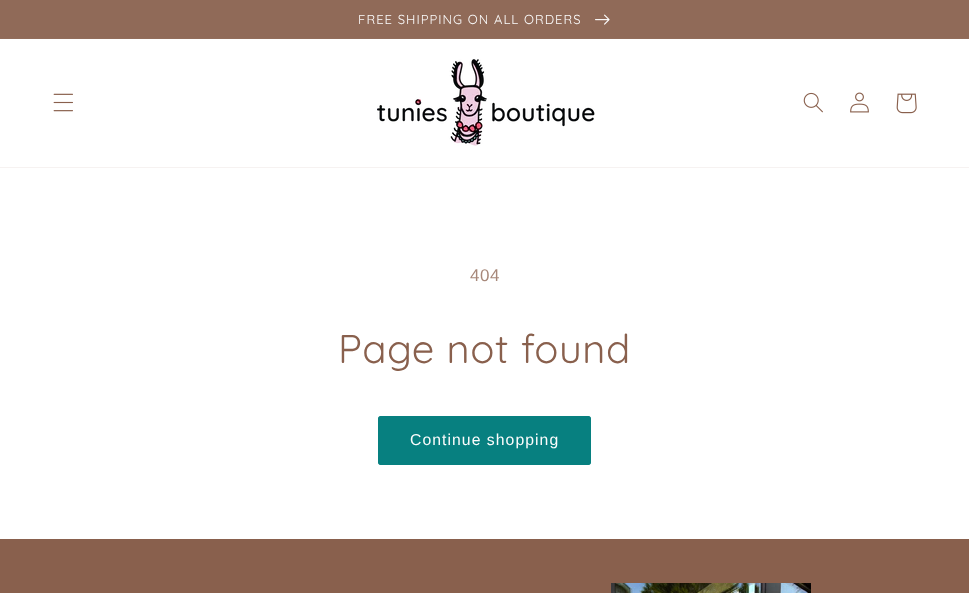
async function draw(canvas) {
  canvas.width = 969;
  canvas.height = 593;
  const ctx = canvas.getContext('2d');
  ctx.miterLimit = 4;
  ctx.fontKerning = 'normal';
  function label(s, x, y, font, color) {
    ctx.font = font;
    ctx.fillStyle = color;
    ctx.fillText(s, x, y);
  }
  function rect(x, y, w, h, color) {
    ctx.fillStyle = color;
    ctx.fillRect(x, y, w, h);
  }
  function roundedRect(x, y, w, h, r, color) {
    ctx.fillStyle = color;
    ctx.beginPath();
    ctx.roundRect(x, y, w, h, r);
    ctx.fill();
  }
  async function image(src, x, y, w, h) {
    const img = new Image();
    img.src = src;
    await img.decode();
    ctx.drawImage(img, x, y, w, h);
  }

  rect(0, 0, 969, 593, '#fff');
  rect(0, 38, 969, 1, '#926d5b');
  rect(0, 0, 969, 38, '#906a58');
  ctx.letterSpacing = '1.05px';
  label('FREE SHIPPING ON ALL ORDERS', 358, 24, '13px Quicksand', '#fcfcfc');
  await image('assets/img1.png', 595, 14, 15, 11);
  rect(0, 167, 969, 1, '#f6f2f1');
  await image('assets/img2.png', 53, 93, 20, 19);
  await image('assets/img3.png', 377, 59, 218, 87);
  await image('assets/img4.png', 803, 92, 20, 21);
  await image('assets/img5.png', 850, 92, 19, 21);
  await image('assets/img6.png', 896, 93, 21, 21);
  ctx.letterSpacing = '0.5px';
  label('404', 470, 281, '17px Arimo', '#a7887a');
  ctx.letterSpacing = '0.6px';
  label('Page not found', 338, 363, '40px Quicksand', '#89604d');
  roundedRect(378, 416, 213, 49, 3, '#078080');
  ctx.beginPath();
  ctx.roundRect(378.5, 416.5, 212, 48, 2.5);
  ctx.strokeStyle = '#078080';
  ctx.stroke();
  ctx.letterSpacing = '1.05px';
  label('Continue shopping', 410, 445, '15.75px Arimo', '#fcfcfc');
  rect(0, 539, 969, 54, '#89604d');
  await image('assets/img7.png', 611, 583, 200, 10);
}

draw(document.querySelector('canvas'));
